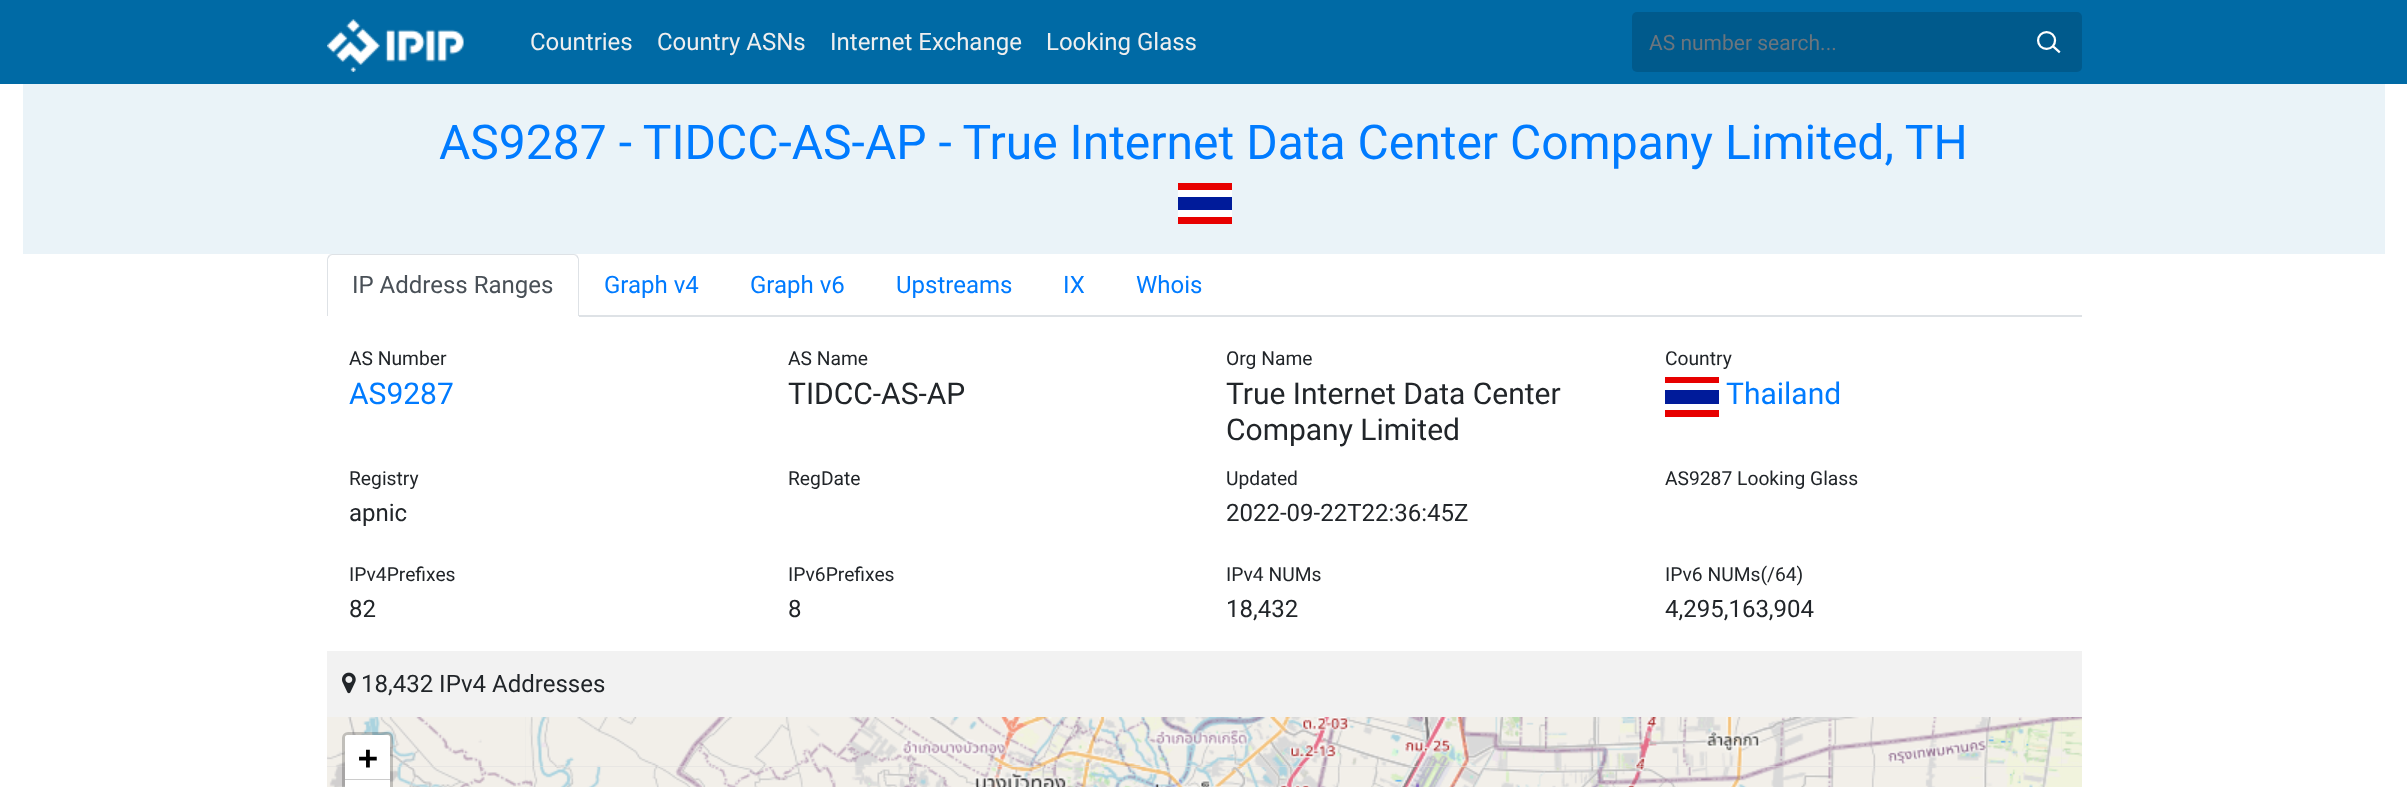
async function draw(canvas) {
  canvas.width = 2407;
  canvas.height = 787;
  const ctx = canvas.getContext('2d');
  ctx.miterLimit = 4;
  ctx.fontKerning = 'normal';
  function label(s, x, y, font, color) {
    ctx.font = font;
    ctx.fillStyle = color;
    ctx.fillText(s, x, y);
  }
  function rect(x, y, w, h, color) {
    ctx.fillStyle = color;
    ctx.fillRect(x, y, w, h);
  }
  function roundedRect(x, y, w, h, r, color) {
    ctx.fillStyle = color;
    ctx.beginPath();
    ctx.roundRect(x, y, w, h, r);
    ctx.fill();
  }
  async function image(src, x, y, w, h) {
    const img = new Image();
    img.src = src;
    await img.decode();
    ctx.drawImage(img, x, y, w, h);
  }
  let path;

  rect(0, 0, 2407, 787, '#fff');
  rect(0, 0, 2407, 84, '#006aa5');
  await image('assets/img1.png', 327, 19, 137, 53);
  label('Countries', 530, 50, '24px Roboto', '#efefef');
  label('Country ASNs', 657, 50, '24px Roboto', '#efefef');
  label('Internet Exchange', 830, 50, '24px Roboto', '#efefef');
  label('Looking Glass', 1046, 50, '24px Roboto', '#efefef');
  roundedRect(1632, 12, 450, 60, 5, '#005a8c');
  label('AS number search...', 1649, 50, '21px Roboto', '#6c757d');
  await image('assets/img2.png', 2037, 31, 24, 23);
  rect(23, 84, 2362, 170, '#eaf3f8');
  label('AS9287 - TIDCC-AS-AP - True Internet Data Center Company Limited, TH', 439, 159, '48px Roboto', '#007bff');
  rect(1178, 183, 54, 7, '#e70000');
  rect(1178, 190, 54, 27, '#fff');
  rect(1178, 197, 54, 13, '#001b9a');
  rect(1178, 217, 54, 7, '#e70000');
  rect(579, 315, 1503, 2, '#dee2e6');
  path = new Path2D('M333 254C332 254 330 254 329 255L330 256C331 255 332 255 333 255H573C574 255 575 255 576 256L577 255C576 254 574 254 573 254Z');
  ctx.fill(path);
  path = new Path2D('M577 255C578 256 579 258 579 260V316H578V315V259L576 256Z');
  ctx.fill(path);
  path = new Path2D('M327 260V316H328V315V259L330 256L329 255C328 256 327 258 327 260Z');
  ctx.fill(path);
  label('IP Address Ranges', 352, 293, '24px Roboto', '#495057');
  label('Graph v4', 604, 293, '24px Roboto', '#007bff');
  label('Graph v6', 750, 293, '24px Roboto', '#007bff');
  label('Upstreams', 896, 293, '24px Roboto', '#007bff');
  label('IX', 1063, 293, '24px Roboto', '#007bff');
  label('Whois', 1136, 293, '24px Roboto', '#007bff');
  label('AS Number', 349, 365, '19.25px Roboto', '#212529');
  label('AS9287', 349, 404, '30px Roboto', '#007bff');
  label('AS Name', 788, 365, '19.25px Roboto', '#212529');
  label('TIDCC-AS-AP', 788, 404, '30px Roboto', '#212529');
  label('Org Name', 1226, 365, '19.25px Roboto', '#212529');
  label('True Internet Data Center', 1226, 404, '30px Roboto', '#212529');
  label('Company Limited', 1226, 440, '30px Roboto', '#212529');
  label('Country', 1665, 365, '19.25px Roboto', '#212529');
  label('Thailand', 1726, 404, '30px Roboto', '#007bff');
  rect(1665, 390, 54, 14, '#001b9a');
  rect(1665, 377, 54, 6, '#e70000');
  rect(1665, 410, 54, 7, '#e70000');
  label('Registry', 349, 485, '19.25px Roboto', '#212529');
  label('apnic', 349, 521, '24px Roboto', '#212529');
  label('RegDate', 788, 485, '19.25px Roboto', '#212529');
  label('Updated', 1226, 485, '19.25px Roboto', '#212529');
  label('2022-09-22T22:36:45Z', 1226, 521, '24px Roboto', '#212529');
  label('AS9287 Looking Glass', 1665, 485, '19.25px Roboto', '#212529');
  label('IPv4Prefixes', 349, 581, '19.25px Roboto', '#212529');
  label('82', 349, 617, '24px Roboto', '#212529');
  label('IPv6Prefixes', 788, 581, '19.25px Roboto', '#212529');
  label('8', 788, 617, '24px Roboto', '#212529');
  label('IPv4 NUMs', 1226, 581, '19.25px Roboto', '#212529');
  label('18,432', 1226, 617, '24px Roboto', '#212529');
  label('IPv6 NUMs(/64)', 1665, 581, '19.25px Roboto', '#212529');
  label('4,295,163,904', 1665, 617, '24px Roboto', '#212529');
  rect(327, 651, 1755, 66, '#f2f2f2');
  await image('assets/img3.png', 342, 672, 14, 22);
  label('18,432 IPv4 Addresses', 361, 692, '24px Roboto', '#212529');
  rect(327, 717, 1755, 70, '#ddd');
  await image('assets/img4.png', 327, 717, 198, 50);
  await image('assets/img6.png', 908, 717, 385, 50);
  await image('assets/img5.png', 525, 717, 384, 50);
  await image('assets/img7.png', 1292, 717, 385, 50);
  await image('assets/img8.png', 1677, 717, 384, 50);
  await image('assets/img9.png', 2061, 717, 21, 50);
  await image('assets/img10.png', 327, 767, 198, 20);
  await image('assets/img11.png', 525, 767, 384, 20);
  await image('assets/img12.png', 909, 767, 384, 20);
  await image('assets/img13.png', 1292, 767, 385, 20);
  await image('assets/img14.png', 1677, 767, 384, 20);
  rect(2061, 767, 21, 20, '#f1f3dd');
  ctx.beginPath();
  ctx.roundRect(343.5, 733.5, 48, 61, 4.5);
  ctx.strokeStyle = '#00000033';
  ctx.lineWidth = 3;
  ctx.stroke();
  ctx.fillStyle = '#fff';
  ctx.beginPath();
  ctx.roundRect(345, 735, 45, 45, [3, 3, 0, 0]);
  ctx.fill();
  rect(345, 779, 45, 1, '#ccc');
  label('+', 358, 769, 'bold 33px DejaVu Sans Mono', '#000');
  rect(345, 780, 45, 7, '#fff');
}

draw(document.querySelector('canvas'));
